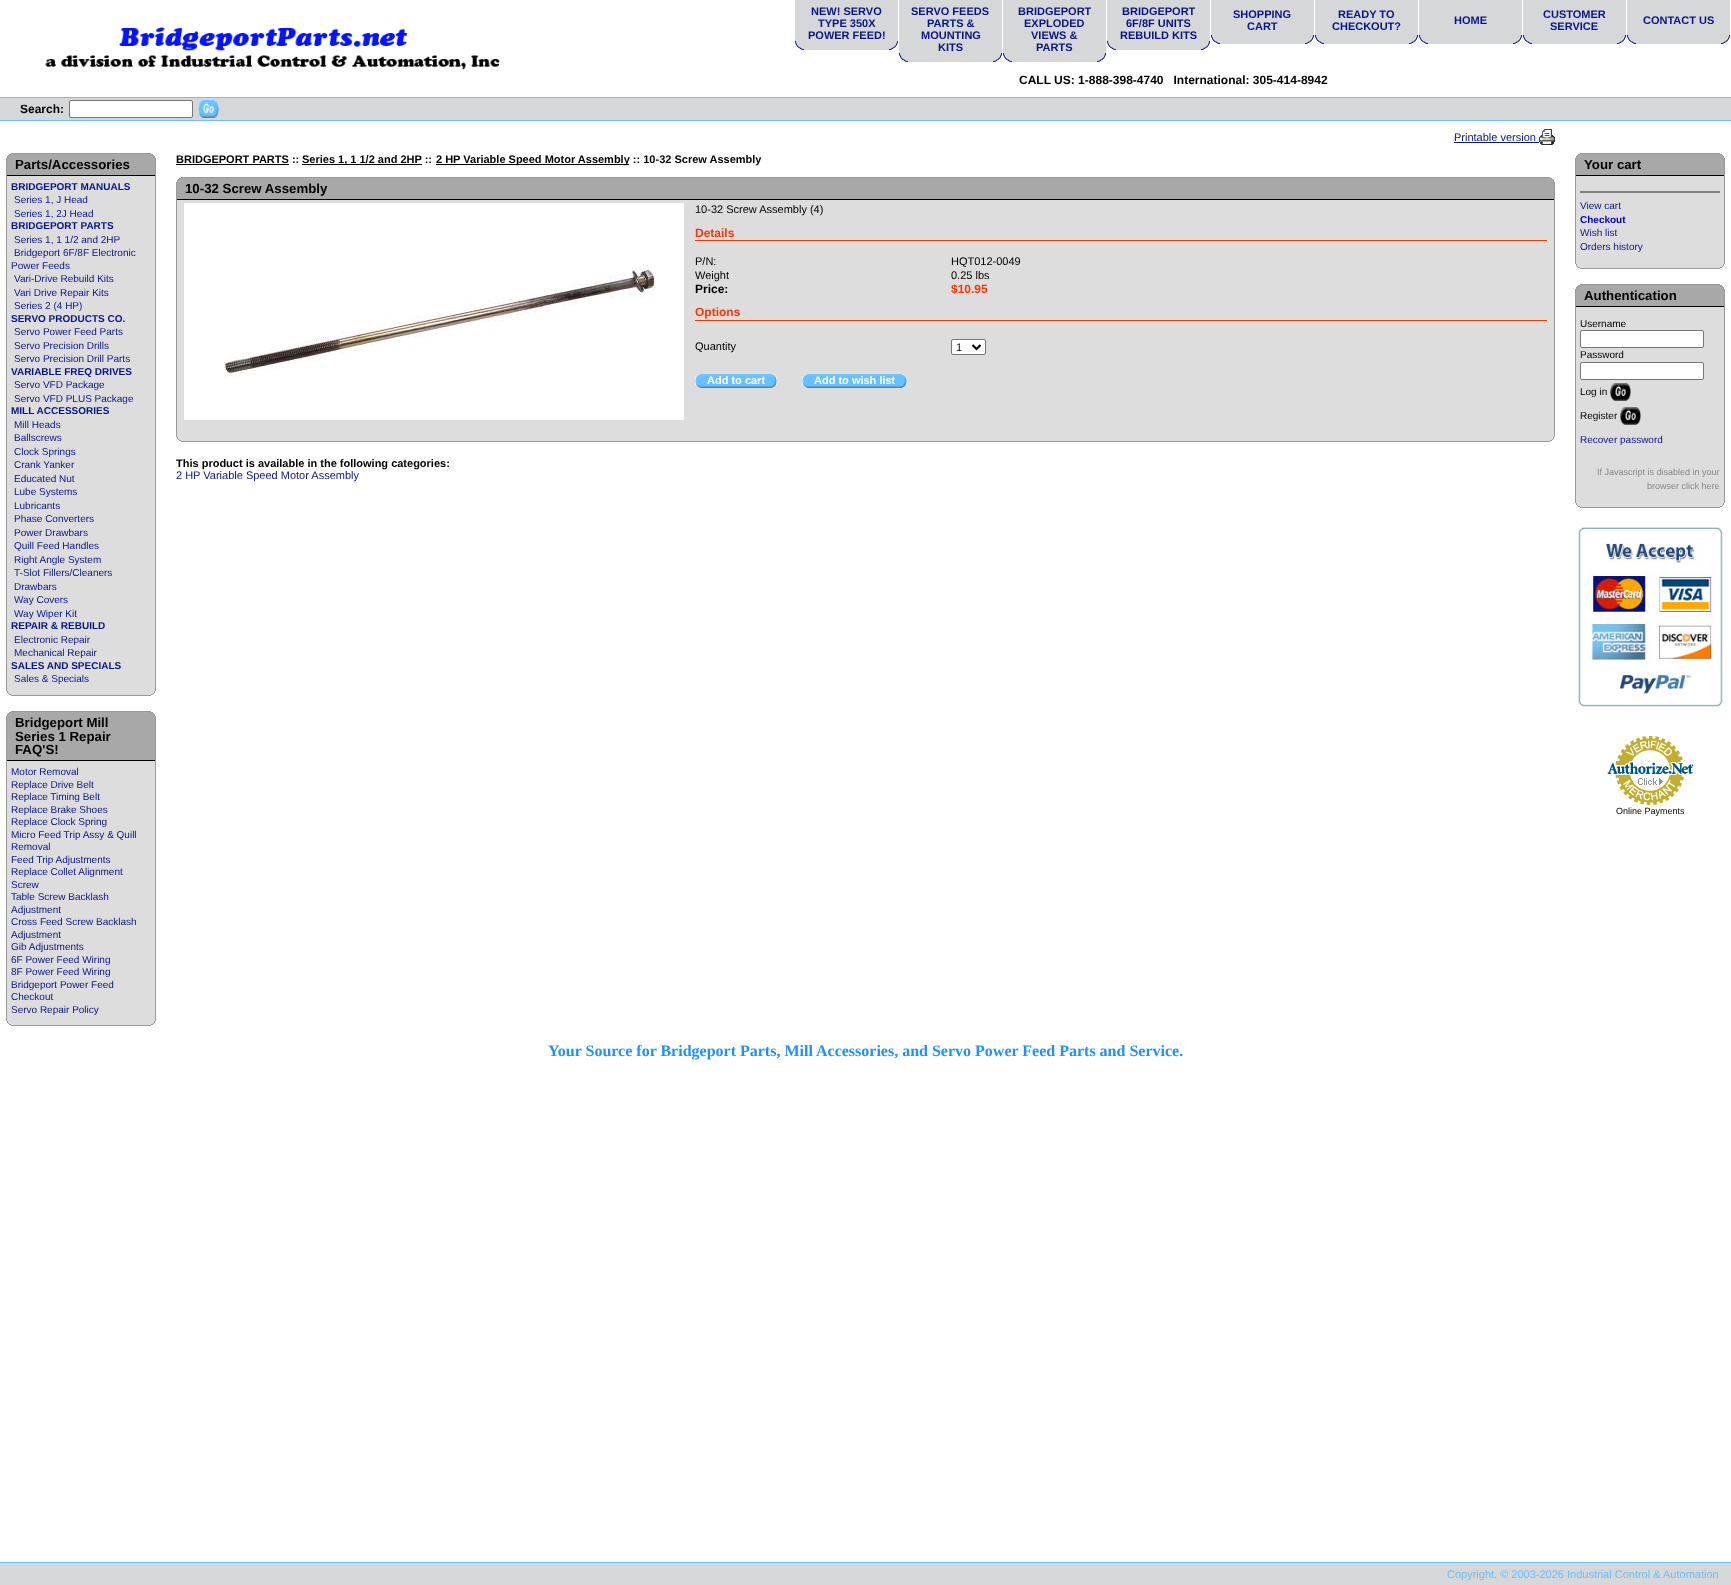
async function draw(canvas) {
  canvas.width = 1731;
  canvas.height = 1585;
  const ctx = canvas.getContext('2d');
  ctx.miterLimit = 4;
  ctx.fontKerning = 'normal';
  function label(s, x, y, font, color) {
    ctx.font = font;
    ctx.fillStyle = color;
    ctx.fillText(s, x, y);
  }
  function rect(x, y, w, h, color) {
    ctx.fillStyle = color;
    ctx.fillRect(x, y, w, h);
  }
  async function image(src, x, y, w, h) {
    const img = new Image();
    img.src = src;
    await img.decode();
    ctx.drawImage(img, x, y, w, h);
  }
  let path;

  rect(0, 0, 1731, 1585, '#fff');
  await image('assets/img1.png', 45, 27, 455, 43);
  rect(795, 0, 103, 5, '#d6d7d9');
  rect(795, 5, 103, 36, '#d6d7d9');
  label('NEW! SERVO', 811, 15, 'bold 11px Liberation Sans', '#081589');
  label('TYPE 350X', 818, 27, 'bold 11px Liberation Sans', '#081589');
  label('POWER FEED!', 808, 39, 'bold 11px Liberation Sans', '#081589');
  await image('assets/img2.png', 795, 41, 9, 9);
  rect(804, 41, 85, 9, '#d6d7d9');
  await image('assets/img3.png', 889, 41, 9, 9);
  rect(899, 0, 103, 5, '#d6d7d9');
  rect(899, 5, 103, 48, '#d6d7d9');
  label('SERVO FEEDS', 911, 15, 'bold 11px Liberation Sans', '#081589');
  label('PARTS &', 927, 27, 'bold 11px Liberation Sans', '#081589');
  label('MOUNTING', 921, 39, 'bold 11px Liberation Sans', '#081589');
  label('KITS', 938, 51, 'bold 11px Liberation Sans', '#081589');
  await image('assets/img2.png', 899, 53, 9, 9);
  rect(908, 53, 85, 9, '#d6d7d9');
  await image('assets/img3.png', 993, 53, 9, 9);
  rect(1003, 0, 103, 5, '#d6d7d9');
  rect(1003, 5, 103, 48, '#d6d7d9');
  label('BRIDGEPORT', 1018, 15, 'bold 11px Liberation Sans', '#081589');
  label('EXPLODED', 1024, 27, 'bold 11px Liberation Sans', '#081589');
  label('VIEWS &', 1031, 39, 'bold 11px Liberation Sans', '#081589');
  label('PARTS', 1036, 51, 'bold 11px Liberation Sans', '#081589');
  await image('assets/img2.png', 1003, 53, 9, 9);
  rect(1012, 53, 85, 9, '#d6d7d9');
  await image('assets/img3.png', 1097, 53, 9, 9);
  rect(1107, 0, 103, 5, '#d6d7d9');
  rect(1107, 5, 103, 36, '#d6d7d9');
  label('BRIDGEPORT', 1122, 15, 'bold 11px Liberation Sans', '#081589');
  label('6F/8F UNITS', 1126, 27, 'bold 11px Liberation Sans', '#081589');
  label('REBUILD KITS', 1120, 39, 'bold 11px Liberation Sans', '#081589');
  await image('assets/img2.png', 1107, 41, 9, 9);
  rect(1116, 41, 85, 9, '#d6d7d9');
  await image('assets/img3.png', 1201, 41, 9, 9);
  rect(1211, 0, 103, 5, '#d6d7d9');
  rect(1211, 5, 103, 30, '#d6d7d9');
  label('SHOPPING', 1233, 18, 'bold 11px Liberation Sans', '#081589');
  label('CART', 1247, 30, 'bold 11px Liberation Sans', '#081589');
  await image('assets/img2.png', 1211, 35, 9, 9);
  rect(1220, 35, 85, 9, '#d6d7d9');
  await image('assets/img3.png', 1305, 35, 9, 9);
  rect(1315, 0, 103, 5, '#d6d7d9');
  rect(1315, 5, 103, 30, '#d6d7d9');
  label('READY TO', 1338, 18, 'bold 11px Liberation Sans', '#081589');
  label('CHECKOUT?', 1332, 30, 'bold 11px Liberation Sans', '#081589');
  await image('assets/img2.png', 1315, 35, 9, 9);
  rect(1324, 35, 85, 9, '#d6d7d9');
  await image('assets/img3.png', 1409, 35, 9, 9);
  rect(1419, 0, 103, 5, '#d6d7d9');
  rect(1419, 5, 103, 30, '#d6d7d9');
  label('HOME', 1454, 24, 'bold 11px Liberation Sans', '#081589');
  await image('assets/img2.png', 1419, 35, 9, 9);
  rect(1428, 35, 85, 9, '#d6d7d9');
  await image('assets/img3.png', 1513, 35, 9, 9);
  rect(1523, 0, 103, 5, '#d6d7d9');
  rect(1523, 5, 103, 30, '#d6d7d9');
  label('CUSTOMER', 1543, 18, 'bold 11px Liberation Sans', '#081589');
  label('SERVICE', 1550, 30, 'bold 11px Liberation Sans', '#081589');
  await image('assets/img2.png', 1523, 35, 9, 9);
  rect(1532, 35, 85, 9, '#d6d7d9');
  await image('assets/img3.png', 1617, 35, 9, 9);
  rect(1627, 0, 103, 5, '#d6d7d9');
  rect(1627, 5, 103, 30, '#d6d7d9');
  label('CONTACT US', 1643, 24, 'bold 11px Liberation Sans', '#081589');
  await image('assets/img2.png', 1627, 35, 9, 9);
  rect(1636, 35, 85, 9, '#d6d7d9');
  await image('assets/img3.png', 1721, 35, 9, 9);
  label('CALL US: 1-888-398-4740   International: 305-414-8942', 1019, 84, 'bold 12px Liberation Sans', '#000');
  rect(0, 97, 1731, 1, '#68c1ff');
  rect(0, 98, 1731, 22, '#d6d7d9');
  label('Search:', 20, 113, 'bold 12px Liberation Sans', '#000');
  ctx.fillStyle = '#fff';
  ctx.beginPath();
  ctx.roundRect(69.5, 100.5, 123, 17, 1.5);
  ctx.fill();
  ctx.strokeStyle = '#767676';
  ctx.stroke();
  await image('assets/img4.png', 198, 100, 21, 18);
  rect(0, 120, 1731, 1, '#68c1ff');
  label('Printable version', 1454, 141, '11px Liberation Sans', '#081589');
  rect(1454, 142, 85, 1, '#081589');
  await image('assets/img5.png', 1539, 129, 16, 16);
  rect(11, 153, 140, 1, '#999');
  rect(9, 154, 144, 1, '#a8a8a8');
  rect(151, 154, 2, 1, '#999');
  rect(9, 154, 2, 1, '#999');
  rect(8, 155, 146, 1, '#a8a8a8');
  rect(153, 155, 1, 1, '#999');
  rect(8, 155, 1, 1, '#999');
  rect(7, 156, 148, 19, '#a8a8a8');
  rect(154, 156, 1, 2, '#999');
  rect(7, 156, 1, 2, '#999');
  rect(7, 176, 148, 517, '#ddd');
  rect(155, 158, 1, 533, '#999');
  rect(6, 158, 1, 533, '#999');
  rect(7, 175, 148, 1, '#000');
  label('Parts/Accessories', 15, 169, 'bold 13.25px Liberation Sans', '#000');
  label('BRIDGEPORT MANUALS', 11, 190, 'bold 10px Liberation Sans', '#081589');
  label('Series 1, J Head', 14, 203, '10px Liberation Sans', '#081589');
  label('Series 1, 2J Head', 14, 217, '10px Liberation Sans', '#081589');
  label('BRIDGEPORT PARTS', 11, 229, 'bold 10px Liberation Sans', '#081589');
  label('Series 1, 1 1/2 and 2HP', 14, 243, '10px Liberation Sans', '#081589');
  label('Bridgeport 6F/8F Electronic', 14, 256, '10px Liberation Sans', '#081589');
  label('Power Feeds', 11, 269, '10px Liberation Sans', '#081589');
  label('Vari-Drive Rebuild Kits', 14, 282, '10px Liberation Sans', '#081589');
  label('Vari Drive Repair Kits', 14, 296, '10px Liberation Sans', '#081589');
  label('Series 2 (4 HP)', 14, 309, '10px Liberation Sans', '#081589');
  label('SERVO PRODUCTS CO.', 11, 322, 'bold 10px Liberation Sans', '#081589');
  label('Servo Power Feed Parts', 14, 335, '10px Liberation Sans', '#081589');
  label('Servo Precision Drills', 14, 349, '10px Liberation Sans', '#081589');
  label('Servo Precision Drill Parts', 14, 362, '10px Liberation Sans', '#081589');
  label('VARIABLE FREQ DRIVES', 11, 375, 'bold 10px Liberation Sans', '#081589');
  label('Servo VFD Package', 14, 388, '10px Liberation Sans', '#081589');
  label('Servo VFD PLUS Package', 14, 402, '10px Liberation Sans', '#081589');
  label('MILL ACCESSORIES', 11, 414, 'bold 10px Liberation Sans', '#081589');
  label('Mill Heads', 14, 428, '10px Liberation Sans', '#081589');
  label('Ballscrews', 14, 441, '10px Liberation Sans', '#081589');
  label('Clock Springs', 14, 455, '10px Liberation Sans', '#081589');
  label('Crank Yanker', 14, 468, '10px Liberation Sans', '#081589');
  label('Educated Nut', 14, 482, '10px Liberation Sans', '#081589');
  label('Lube Systems', 14, 495, '10px Liberation Sans', '#081589');
  label('Lubricants', 14, 509, '10px Liberation Sans', '#081589');
  label('Phase Converters', 14, 522, '10px Liberation Sans', '#081589');
  label('Power Drawbars', 14, 536, '10px Liberation Sans', '#081589');
  label('Quill Feed Handles', 14, 549, '10px Liberation Sans', '#081589');
  label('Right Angle System', 14, 563, '10px Liberation Sans', '#081589');
  label('T-Slot Fillers/Cleaners', 14, 576, '10px Liberation Sans', '#081589');
  label('Drawbars', 14, 590, '10px Liberation Sans', '#081589');
  label('Way Covers', 14, 603, '10px Liberation Sans', '#081589');
  label('Way Wiper Kit', 14, 617, '10px Liberation Sans', '#081589');
  label('REPAIR & REBUILD', 11, 629, 'bold 10px Liberation Sans', '#081589');
  label('Electronic Repair', 14, 643, '10px Liberation Sans', '#081589');
  label('Mechanical Repair', 14, 656, '10px Liberation Sans', '#081589');
  label('SALES AND SPECIALS', 11, 669, 'bold 10px Liberation Sans', '#081589');
  label('Sales & Specials', 14, 682, '10px Liberation Sans', '#081589');
  rect(154, 691, 1, 2, '#999');
  rect(7, 691, 1, 2, '#999');
  rect(8, 693, 146, 1, '#ddd');
  rect(153, 693, 1, 1, '#999');
  rect(8, 693, 1, 1, '#999');
  rect(9, 694, 144, 1, '#ddd');
  rect(151, 694, 2, 1, '#999');
  rect(9, 694, 2, 1, '#999');
  rect(11, 695, 140, 1, '#999');
  rect(11, 711, 140, 1, '#999');
  rect(9, 712, 144, 1, '#a8a8a8');
  rect(151, 712, 2, 1, '#999');
  rect(9, 712, 2, 1, '#999');
  rect(8, 713, 146, 1, '#a8a8a8');
  rect(153, 713, 1, 1, '#999');
  rect(8, 713, 1, 1, '#999');
  rect(7, 714, 148, 46, '#a8a8a8');
  rect(154, 714, 1, 2, '#999');
  rect(7, 714, 1, 2, '#999');
  rect(7, 761, 148, 262, '#ddd');
  rect(155, 716, 1, 305, '#999');
  rect(6, 716, 1, 305, '#999');
  rect(7, 760, 148, 1, '#000');
  label('Bridgeport Mill', 15, 727, 'bold 13.25px Liberation Sans', '#000');
  label('Series 1 Repair', 15, 741, 'bold 13.25px Liberation Sans', '#000');
  label('FAQ\'S!', 15, 754, 'bold 13.25px Liberation Sans', '#000');
  label('Motor Removal', 11, 775, '10px Liberation Sans', '#081589');
  label('Replace Drive Belt', 11, 788, '10px Liberation Sans', '#081589');
  label('Replace Timing Belt', 11, 800, '10px Liberation Sans', '#081589');
  label('Replace Brake Shoes', 11, 813, '10px Liberation Sans', '#081589');
  label('Replace Clock Spring', 11, 825, '10px Liberation Sans', '#081589');
  label('Micro Feed Trip Assy & Quill', 11, 838, '10px Liberation Sans', '#081589');
  label('Removal', 11, 850, '10px Liberation Sans', '#081589');
  label('Feed Trip Adjustments', 11, 863, '10px Liberation Sans', '#081589');
  label('Replace Collet Alignment', 11, 875, '10px Liberation Sans', '#081589');
  label('Screw', 11, 888, '10px Liberation Sans', '#081589');
  label('Table Screw Backlash', 11, 900, '10px Liberation Sans', '#081589');
  label('Adjustment', 11, 913, '10px Liberation Sans', '#081589');
  label('Cross Feed Screw Backlash', 11, 925, '10px Liberation Sans', '#081589');
  label('Adjustment', 11, 938, '10px Liberation Sans', '#081589');
  label('Gib Adjustments', 11, 950, '10px Liberation Sans', '#081589');
  label('6F Power Feed Wiring', 11, 963, '10px Liberation Sans', '#081589');
  label('8F Power Feed Wiring', 11, 975, '10px Liberation Sans', '#081589');
  label('Bridgeport Power Feed', 11, 988, '10px Liberation Sans', '#081589');
  label('Checkout', 11, 1000, '10px Liberation Sans', '#081589');
  label('Servo Repair Policy', 11, 1013, '10px Liberation Sans', '#081589');
  rect(154, 1021, 1, 2, '#999');
  rect(7, 1021, 1, 2, '#999');
  rect(8, 1023, 146, 1, '#ddd');
  rect(153, 1023, 1, 1, '#999');
  rect(8, 1023, 1, 1, '#999');
  rect(9, 1024, 144, 1, '#ddd');
  rect(151, 1024, 2, 1, '#999');
  rect(9, 1024, 2, 1, '#999');
  rect(11, 1025, 140, 1, '#999');
  label('BRIDGEPORT PARTS ::', 176, 163, 'bold 11px Liberation Sans', '#000');
  rect(176, 164, 113, 1, '#000');
  rect(302, 164, 120, 1, '#000');
  label('Series 1, 1 1/2 and 2HP ::', 302, 163, 'bold 11px Liberation Sans', '#000');
  rect(436, 164, 193, 1, '#000');
  label('2 HP Variable Speed Motor Assembly :: 10-32 Screw Assembly', 436, 163, 'bold 11px Liberation Sans', '#000');
  rect(181, 177, 1369, 1, '#999');
  rect(179, 178, 1373, 1, '#a8a8a8');
  rect(1550, 178, 2, 1, '#999');
  rect(179, 178, 2, 1, '#999');
  rect(178, 179, 1375, 1, '#a8a8a8');
  rect(1552, 179, 1, 1, '#999');
  rect(178, 179, 1, 1, '#999');
  rect(177, 180, 1377, 19, '#a8a8a8');
  rect(1553, 180, 1, 2, '#999');
  rect(177, 180, 1, 2, '#999');
  rect(177, 200, 1377, 239, '#ddd');
  rect(1554, 182, 1, 255, '#999');
  rect(176, 182, 1, 255, '#999');
  rect(177, 199, 1377, 1, '#000');
  label('10-32 Screw Assembly', 185, 193, 'bold 13.25px Liberation Sans', '#000');
  await image('assets/img6.png', 184, 203, 500, 217);
  label('10-32 Screw Assembly (4)', 695, 213, '11px Liberation Sans', '#000');
  label('Details', 695, 237, 'bold 12px Liberation Sans', '#f30');
  rect(695, 240, 852, 1, '#f30');
  label('P/N:', 695, 265, '11px Liberation Sans', '#000');
  label('HQT012-0049', 951, 265, '11px Liberation Sans', '#000');
  label('Weight', 695, 279, '11px Liberation Sans', '#000');
  label('0.25 lbs', 951, 279, '11px Liberation Sans', '#000');
  label('Price:', 695, 293, 'bold 12px Liberation Sans', '#000');
  label('$10.95', 951, 293, 'bold 12px Liberation Sans', '#f30');
  label('Options', 695, 316, 'bold 12px Liberation Sans', '#f30');
  rect(695, 320, 852, 1, '#f30');
  label('Quantity', 695, 350, '11px Liberation Sans', '#000');
  ctx.fillStyle = '#fff';
  ctx.beginPath();
  ctx.roundRect(951.5, 339.5, 34, 15, 1.5);
  ctx.fill();
  ctx.stroke();
  path = new Path2D('M972.5 345L976.5 349L980.5 345');
  ctx.strokeStyle = '#000';
  ctx.lineWidth = 2;
  ctx.stroke(path);
  label('1', 956, 351, '11px Liberation Sans', '#000');
  await image('assets/img7.png', 695, 374, 7, 14);
  await image('assets/img8.png', 702, 374, 68, 14);
  label('Add to cart', 707, 384, 'bold 11px Liberation Sans', '#fff');
  await image('assets/img9.png', 770, 374, 7, 14);
  await image('assets/img7.png', 802, 374, 7, 14);
  await image('assets/img10.png', 809, 374, 91, 14);
  label('Add to wish list', 814, 384, 'bold 11px Liberation Sans', '#fff');
  await image('assets/img9.png', 900, 374, 7, 14);
  rect(1553, 437, 1, 2, '#999');
  rect(177, 437, 1, 2, '#999');
  rect(178, 439, 1375, 1, '#ddd');
  rect(1552, 439, 1, 1, '#999');
  rect(178, 439, 1, 1, '#999');
  rect(179, 440, 1373, 1, '#ddd');
  rect(1550, 440, 2, 1, '#999');
  rect(179, 440, 2, 1, '#999');
  rect(181, 441, 1369, 1, '#999');
  label('This product is available in the following categories:', 176, 467, 'bold 11px Liberation Sans', '#000');
  label('2 HP Variable Speed Motor Assembly', 176, 479, '11px Liberation Sans', '#081589');
  rect(1580, 153, 140, 1, '#999');
  rect(1578, 154, 144, 1, '#a8a8a8');
  rect(1720, 154, 2, 1, '#999');
  rect(1578, 154, 2, 1, '#999');
  rect(1577, 155, 146, 1, '#a8a8a8');
  rect(1722, 155, 1, 1, '#999');
  rect(1577, 155, 1, 1, '#999');
  rect(1576, 156, 148, 19, '#a8a8a8');
  rect(1723, 156, 1, 2, '#999');
  rect(1576, 156, 1, 2, '#999');
  rect(1576, 176, 148, 90, '#ddd');
  rect(1724, 158, 1, 106, '#999');
  rect(1575, 158, 1, 106, '#999');
  rect(1576, 175, 148, 1, '#000');
  label('Your cart', 1584, 169, 'bold 13.25px Liberation Sans', '#000');
  rect(1580, 191, 140, 2, '#808080');
  label('View cart', 1580, 209, '10px Liberation Sans', '#081589');
  label('Checkout', 1580, 223, 'bold 10px Liberation Sans', '#0000cd');
  label('Wish list', 1580, 236, '10px Liberation Sans', '#081589');
  label('Orders history', 1580, 250, '10px Liberation Sans', '#081589');
  rect(1723, 264, 1, 2, '#999');
  rect(1576, 264, 1, 2, '#999');
  rect(1577, 266, 146, 1, '#ddd');
  rect(1722, 266, 1, 1, '#999');
  rect(1577, 266, 1, 1, '#999');
  rect(1578, 267, 144, 1, '#ddd');
  rect(1720, 267, 2, 1, '#999');
  rect(1578, 267, 2, 1, '#999');
  rect(1580, 268, 140, 1, '#999');
  rect(1580, 284, 140, 1, '#999');
  rect(1578, 285, 144, 1, '#a8a8a8');
  rect(1720, 285, 2, 1, '#999');
  rect(1578, 285, 2, 1, '#999');
  rect(1577, 286, 146, 1, '#a8a8a8');
  rect(1722, 286, 1, 1, '#999');
  rect(1577, 286, 1, 1, '#999');
  rect(1576, 287, 148, 19, '#a8a8a8');
  rect(1723, 287, 1, 2, '#999');
  rect(1576, 287, 1, 2, '#999');
  rect(1576, 307, 148, 198, '#ddd');
  rect(1724, 289, 1, 214, '#999');
  rect(1575, 289, 1, 214, '#999');
  rect(1576, 306, 148, 1, '#000');
  label('Authentication', 1584, 300, 'bold 13.25px Liberation Sans', '#000');
  label('Username', 1580, 327, '10px Liberation Sans', '#000');
  ctx.fillStyle = '#fff';
  ctx.beginPath();
  ctx.roundRect(1580.5, 330.5, 123, 17, 1.5);
  ctx.fill();
  ctx.strokeStyle = '#767676';
  ctx.lineWidth = 1;
  ctx.stroke();
  label('Password', 1580, 358, '10px Liberation Sans', '#000');
  ctx.fillStyle = '#fff';
  ctx.beginPath();
  ctx.roundRect(1580.5, 362.5, 123, 17, 1.5);
  ctx.fill();
  ctx.stroke();
  label('Log in', 1580, 395, '10px Liberation Sans', '#000');
  await image('assets/img11.png', 1610, 383, 21, 18);
  label('Register', 1580, 419, '10px Liberation Sans', '#000');
  await image('assets/img12.png', 1620, 407, 21, 18);
  label('Recover password', 1580, 443, '10px Liberation Sans', '#081589');
  label('If Javascript is disabled in your', 1597, 475, '9px Liberation Sans', '#888');
  label('browser click here', 1647, 489, '9px Liberation Sans', '#888');
  rect(1723, 503, 1, 2, '#999');
  rect(1576, 503, 1, 2, '#999');
  rect(1577, 505, 146, 1, '#ddd');
  rect(1722, 505, 1, 1, '#999');
  rect(1577, 505, 1, 1, '#999');
  rect(1578, 506, 144, 1, '#ddd');
  rect(1720, 506, 2, 1, '#999');
  rect(1578, 506, 2, 1, '#999');
  rect(1580, 507, 140, 1, '#999');
  await image('assets/img13.png', 1578, 527, 145, 180);
  await image('assets/img14.png', 1607, 736, 86, 69);
  label('Online Payments', 1616, 814, '9px Liberation Sans', '#000');
  label('Your Source for Bridgeport Parts, Mill Accessories, and Servo Power Feed Parts and Service.', 548, 1056, 'bold 16px Liberation Serif', '#1e90ff');
  rect(0, 1562, 1731, 1, '#68c1ff');
  rect(0, 1563, 1731, 22, '#d6d7d9');
  label('Copyright. © 2003-2026 Industrial Control & Automation', 1447, 1578, '11px Liberation Sans', '#68c1ff');
}

draw(document.querySelector('canvas'));
